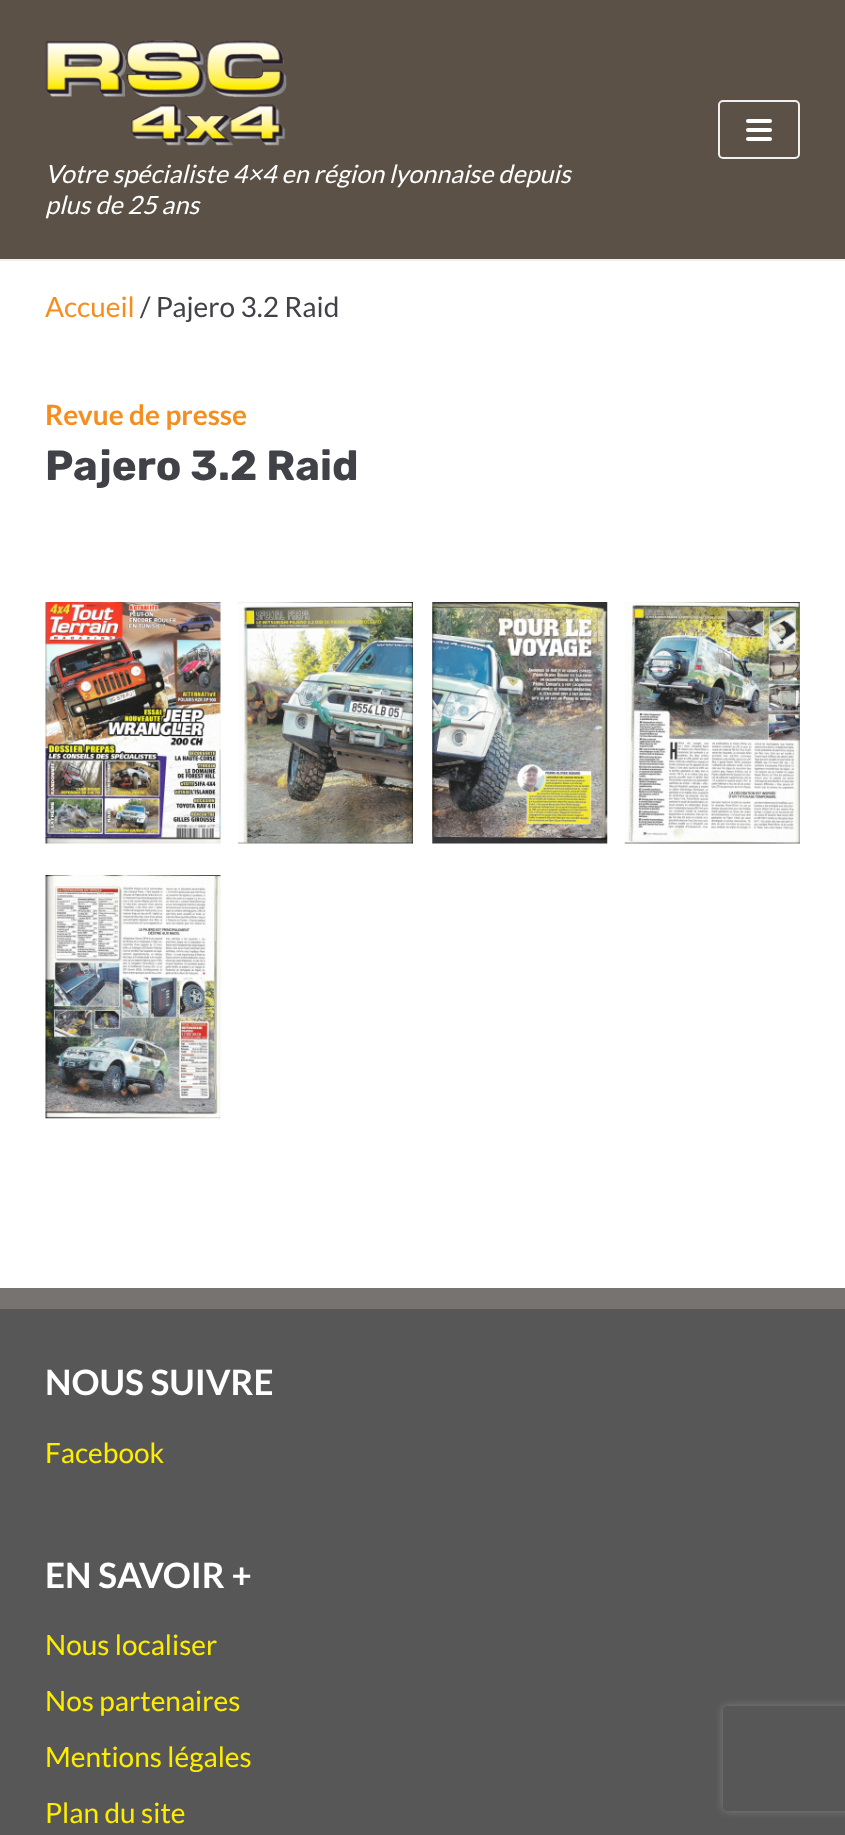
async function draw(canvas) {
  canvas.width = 845;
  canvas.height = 1835;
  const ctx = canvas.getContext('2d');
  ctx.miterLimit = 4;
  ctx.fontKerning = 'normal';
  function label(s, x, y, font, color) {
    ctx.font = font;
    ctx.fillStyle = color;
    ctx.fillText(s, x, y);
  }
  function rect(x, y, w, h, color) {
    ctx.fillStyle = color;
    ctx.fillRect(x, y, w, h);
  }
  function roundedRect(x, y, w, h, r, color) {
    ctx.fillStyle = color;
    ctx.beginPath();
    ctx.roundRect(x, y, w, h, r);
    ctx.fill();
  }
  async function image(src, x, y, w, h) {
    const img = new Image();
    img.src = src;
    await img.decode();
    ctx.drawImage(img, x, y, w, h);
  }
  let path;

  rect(0, 0, 845, 1835, '#5b5147');
  rect(0, 259, 845, 2, '#f0f0f0');
  ctx.beginPath();
  ctx.roundRect(719, 101, 80, 57, 4);
  ctx.strokeStyle = '#f0f0f0';
  ctx.lineWidth = 2;
  ctx.stroke();
  roundedRect(746, 119, 26, 4, 2, '#fff');
  roundedRect(746, 128, 26, 4, 2, '#fff');
  roundedRect(746, 137, 26, 4, 2, '#fff');
  await image('assets/img1.png', 45, 40, 242, 106);
  label('Votre spécialiste 4×4 en région lyonnaise depuis', 45, 183, 'italic 25.2px Lato', '#fff');
  label('plus de 25 ans', 45, 214, 'italic 25.2px Lato', '#fff');
  rect(0, 261, 845, 1027, '#fff');
  label('Accueil', 45, 317, '28px Lato', '#f68e1f');
  label('/ Pajero 3.2 Raid', 140, 317, '28px Lato', '#404248');
  label('Revue de presse', 45, 425, 'bold 28px Lato', '#f68e1f');
  label('Pajero 3.2 Raid', 45, 480, 'bold 42px Rubik', '#404248');
  await image('assets/img2.png', 45, 602, 176, 242);
  await image('assets/img3.png', 238, 602, 175, 242);
  await image('assets/img4.png', 432, 602, 176, 242);
  await image('assets/img5.png', 624, 602, 176, 242);
  await image('assets/img6.png', 45, 875, 176, 244);
  rect(0, 1309, 845, 526, '#575757');
  rect(0, 1288, 845, 21, '#777370');
  label('NOUS SUIVRE', 45, 1395, 'bold 35px Lato', '#fff');
  label('Facebook', 45, 1463, '28px Lato', '#ffed00');
  label('EN SAVOIR +', 45, 1588, 'bold 35px Lato', '#fff');
  label('Nous localiser', 45, 1655, '28px Lato', '#ffed00');
  label('Nos partenaires', 45, 1711, '28px Lato', '#ffed00');
  label('Mentions légales', 45, 1767, '28px Lato', '#ffed00');
  label('Plan du site', 45, 1823, '28px Lato', '#ffed00');
  ctx.save();
  path = new Path2D('M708 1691H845V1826H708ZM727 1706H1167C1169 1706 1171 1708 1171 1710V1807C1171 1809 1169 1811 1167 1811H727C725 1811 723 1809 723 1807V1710C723 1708 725 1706 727 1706Z');
  ctx.clip(path, 'evenodd');
  ctx.fillStyle = '#808080';
  ctx.filter = 'blur(4.5px)';
  ctx.beginPath();
  ctx.roundRect(723, 1706, 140, 105, 4);
  ctx.fill();
  ctx.filter = 'none';
  ctx.restore();
}

draw(document.querySelector('canvas'));
